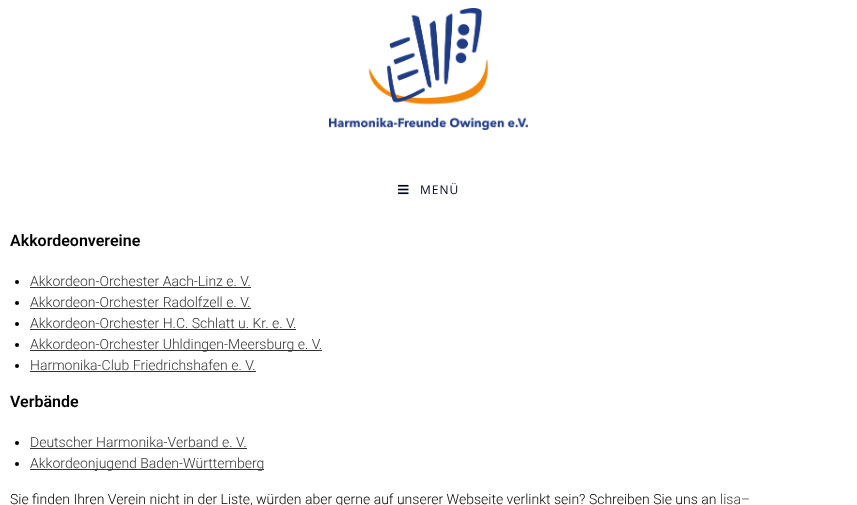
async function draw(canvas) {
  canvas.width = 857;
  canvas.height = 505;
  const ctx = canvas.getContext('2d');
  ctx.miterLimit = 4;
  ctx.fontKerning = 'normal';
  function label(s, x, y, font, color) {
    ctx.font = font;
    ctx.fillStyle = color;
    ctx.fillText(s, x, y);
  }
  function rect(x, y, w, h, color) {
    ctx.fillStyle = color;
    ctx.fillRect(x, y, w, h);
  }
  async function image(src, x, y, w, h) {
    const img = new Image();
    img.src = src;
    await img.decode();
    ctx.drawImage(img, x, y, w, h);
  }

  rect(0, 0, 857, 505, '#fff');
  await image('assets/img1.png', 329, 8, 199, 122);
  await image('assets/img2.png', 398, 184, 11, 11);
  ctx.letterSpacing = '1px';
  label('MENÜ', 420, 194, '12px Open Sans', '#00071c');
  ctx.letterSpacing = '0px';
  label('Akkordeonvereine', 10, 246, '600 16px Roboto', '#000');
  ctx.beginPath();
  ctx.arc(17, 282, 2, 0, 2 * Math.PI);
  ctx.fill();
  label('Akkordeon-Orchester Aach-Linz e. V.', 30, 286, '300 14px Roboto', '#333');
  rect(30, 287, 221, 1, '#333');
  ctx.fillStyle = '#000';
  ctx.beginPath();
  ctx.arc(17, 303, 2, 0, 2 * Math.PI);
  ctx.fill();
  label('Akkordeon-Orchester Radolfzell e. V.', 30, 307, '300 14px Roboto', '#333');
  rect(30, 308, 221, 1, '#333');
  ctx.fillStyle = '#000';
  ctx.beginPath();
  ctx.arc(17, 324, 2, 0, 2 * Math.PI);
  ctx.fill();
  label('Akkordeon-Orchester H.C. Schlatt u. Kr. e. V.', 30, 328, '300 14px Roboto', '#333');
  rect(30, 329, 266, 1, '#333');
  ctx.fillStyle = '#000';
  ctx.beginPath();
  ctx.arc(17, 345, 2, 0, 2 * Math.PI);
  ctx.fill();
  rect(30, 350, 292, 1, '#333');
  label('Akkordeon-Orchester Uhldingen-Meersburg e. V.', 30, 349, '300 14px Roboto', '#333');
  ctx.fillStyle = '#000';
  ctx.beginPath();
  ctx.arc(17, 366, 2, 0, 2 * Math.PI);
  ctx.fill();
  label('Harmonika-Club Friedrichshafen e. V.', 30, 370, '300 14px Roboto', '#333');
  rect(30, 371, 226, 1, '#333');
  label('Verbände', 10, 407, '600 16px Roboto', '#000');
  ctx.beginPath();
  ctx.arc(17, 443, 2, 0, 2 * Math.PI);
  ctx.fill();
  label('Deutscher Harmonika-Verband e. V.', 30, 447, '300 14px Roboto', '#333');
  rect(30, 448, 217, 1, '#333');
  ctx.fillStyle = '#000';
  ctx.beginPath();
  ctx.arc(17, 464, 2, 0, 2 * Math.PI);
  ctx.fill();
  rect(30, 469, 234, 1, '#333');
  label('Akkordeonjugend Baden-Württemberg', 30, 468, '300 14px Roboto', '#333');
  label('Sie finden Ihren Verein nicht in der Liste, würden aber gerne auf unserer Webseite verlinkt sein? Schreiben Sie uns an', 10, 504, '300 14px Roboto', '#000');
  label('lisa–', 720, 504, '300 14px Roboto', '#333');
}

draw(document.querySelector('canvas'));
